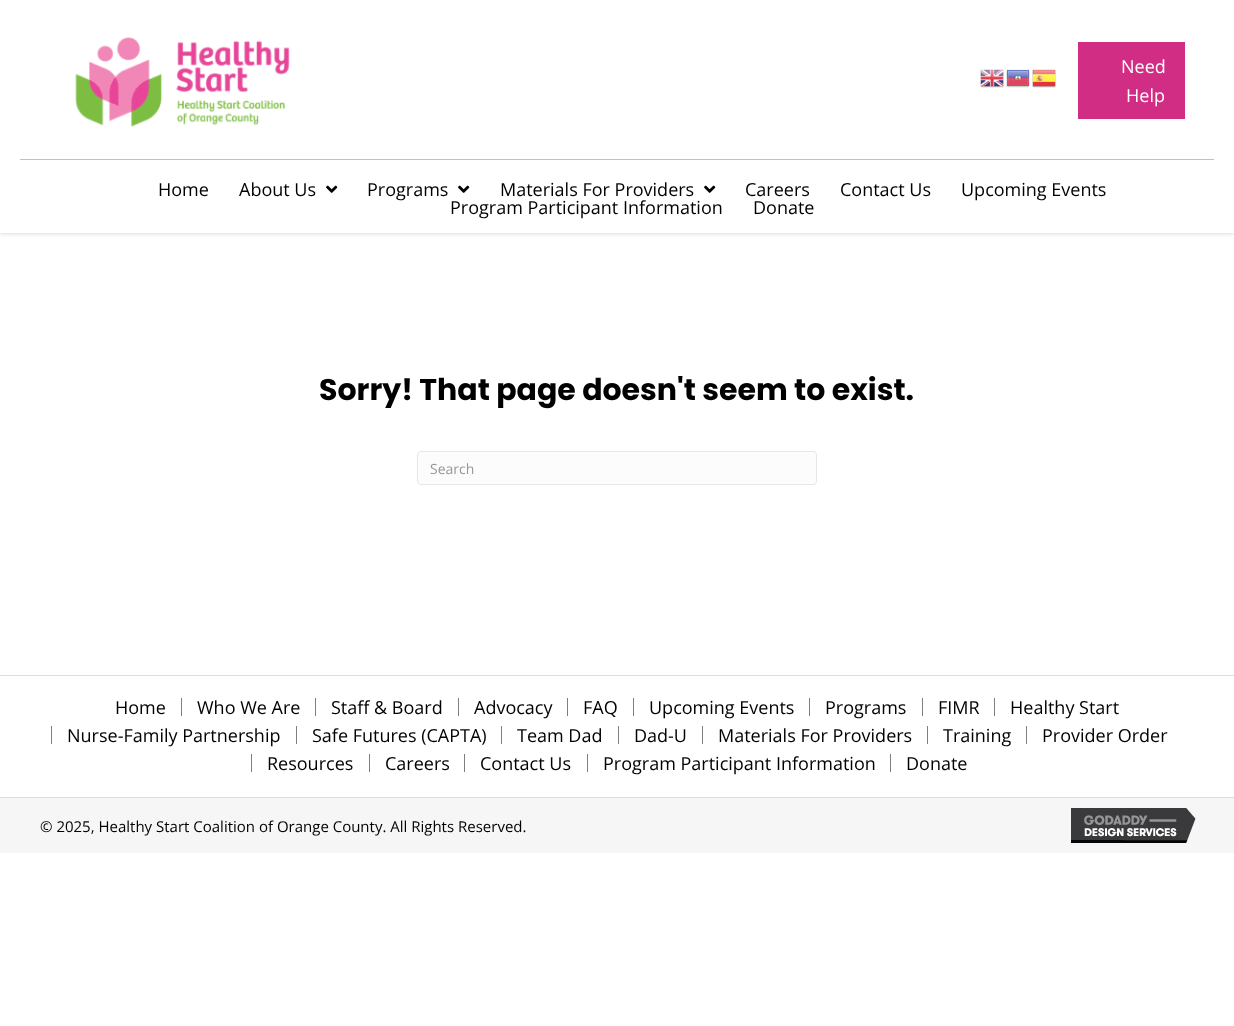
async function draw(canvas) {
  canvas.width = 1234;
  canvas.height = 1026;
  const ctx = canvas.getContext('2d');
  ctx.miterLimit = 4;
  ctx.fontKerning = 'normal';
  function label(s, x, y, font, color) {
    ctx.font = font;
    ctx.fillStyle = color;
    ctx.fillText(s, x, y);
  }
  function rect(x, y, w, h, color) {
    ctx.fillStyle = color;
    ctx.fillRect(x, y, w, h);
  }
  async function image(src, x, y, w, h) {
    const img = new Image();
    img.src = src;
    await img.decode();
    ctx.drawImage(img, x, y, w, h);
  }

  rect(0, 0, 1234, 1026, '#fff');
  ctx.save();
  ctx.beginPath();
  ctx.rect(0, 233, 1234, 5);
  ctx.clip();
  ctx.fillStyle = '#ccc';
  ctx.filter = 'blur(2.5px)';
  ctx.beginPath();
  ctx.rect(0, 0, 1234, 233);
  ctx.fill();
  ctx.filter = 'none';
  ctx.restore();
  await image('assets/img1.png', 75, 37, 215, 90);
  await image('assets/img2.png', 980, 69, 24, 19);
  await image('assets/img3.png', 1006, 69, 24, 19);
  await image('assets/img4.png', 1032, 69, 24, 19);
  rect(1078, 42, 107, 77, '#d12d84');
  label('Need', 1121, 73, '18px Open Sans', '#fff');
  label('Help', 1126, 102, '18px Open Sans', '#fff');
  rect(20, 159, 1194, 1, '#c1c1c1');
  label('Home', 158, 196, '18px Open Sans', '#000');
  label('About Us', 239, 196, '18px Open Sans', '#000');
  await image('assets/img5.png', 326, 185, 12, 8);
  label('Programs', 367, 196, '18px Open Sans', '#000');
  await image('assets/img5.png', 458, 185, 12, 8);
  label('Materials For Providers', 500, 196, '18px Open Sans', '#000');
  await image('assets/img5.png', 704, 185, 12, 8);
  label('Careers', 745, 196, '18px Open Sans', '#000');
  label('Contact Us', 840, 196, '18px Open Sans', '#000');
  label('Upcoming Events', 961, 196, '18px Open Sans', '#000');
  label('Program Participant Information', 450, 214, '18px Open Sans', '#000');
  label('Donate', 753, 214, '18px Open Sans', '#000');
  label('Sorry! That page doesn\'t seem to exist.', 319, 400, 'bold 30px Poppins', '#000');
  ctx.fillStyle = '#fcfcfc';
  ctx.beginPath();
  ctx.roundRect(417.5, 451.5, 399, 33, 3.5);
  ctx.fill();
  ctx.strokeStyle = '#e6e6e6';
  ctx.stroke();
  label('Search', 430, 474, '14px Open Sans', '#979797');
  rect(0, 675, 1234, 1, '#ddd');
  rect(0, 797, 1234, 1, '#ddd');
  label('Home', 115, 714, '18px Open Sans', '#000');
  rect(181, 698, 1, 18, '#7f7f7f');
  label('Who We Are', 197, 714, '18px Open Sans', '#000');
  rect(315, 698, 1, 18, '#7f7f7f');
  label('Staff & Board', 331, 714, '18px Open Sans', '#000');
  rect(458, 698, 1, 18, '#7f7f7f');
  label('Advocacy', 474, 714, '18px Open Sans', '#000');
  rect(567, 698, 1, 18, '#7f7f7f');
  label('FAQ', 583, 714, '18px Open Sans', '#000');
  rect(633, 698, 1, 18, '#7f7f7f');
  label('Upcoming Events', 649, 714, '18px Open Sans', '#000');
  rect(809, 698, 1, 18, '#7f7f7f');
  label('Programs', 825, 714, '18px Open Sans', '#000');
  rect(922, 698, 1, 18, '#7f7f7f');
  label('FIMR', 938, 714, '18px Open Sans', '#000');
  rect(994, 698, 1, 18, '#7f7f7f');
  label('Healthy Start', 1010, 714, '18px Open Sans', '#000');
  rect(51, 726, 1, 18, '#7f7f7f');
  label('Nurse-Family Partnership', 67, 742, '18px Open Sans', '#000');
  rect(296, 726, 1, 18, '#7f7f7f');
  label('Safe Futures (CAPTA)', 312, 742, '18px Open Sans', '#000');
  rect(501, 726, 1, 18, '#7f7f7f');
  label('Team Dad', 517, 742, '18px Open Sans', '#000');
  rect(618, 726, 1, 18, '#7f7f7f');
  label('Dad-U', 634, 742, '18px Open Sans', '#000');
  rect(702, 726, 1, 18, '#7f7f7f');
  label('Materials For Providers', 718, 742, '18px Open Sans', '#000');
  rect(927, 726, 1, 18, '#7f7f7f');
  label('Training', 943, 742, '18px Open Sans', '#000');
  rect(1026, 726, 1, 18, '#7f7f7f');
  label('Provider Order', 1042, 742, '18px Open Sans', '#000');
  rect(251, 754, 1, 18, '#7f7f7f');
  label('Resources', 267, 770, '18px Open Sans', '#000');
  rect(369, 754, 1, 18, '#7f7f7f');
  label('Careers', 385, 770, '18px Open Sans', '#000');
  rect(464, 754, 1, 18, '#7f7f7f');
  label('Contact Us', 480, 770, '18px Open Sans', '#000');
  rect(587, 754, 1, 18, '#7f7f7f');
  label('Program Participant Information', 603, 770, '18px Open Sans', '#000');
  rect(890, 754, 1, 18, '#7f7f7f');
  label('Donate', 906, 770, '18px Open Sans', '#000');
  rect(0, 798, 1234, 55, '#f6f6f6');
  label('© 2025, Healthy Start Coalition of Orange County. All Rights Reserved.', 40, 832, '15px Open Sans', '#000');
  await image('assets/img6.png', 1071, 808, 125, 35);
}

draw(document.querySelector('canvas'));
